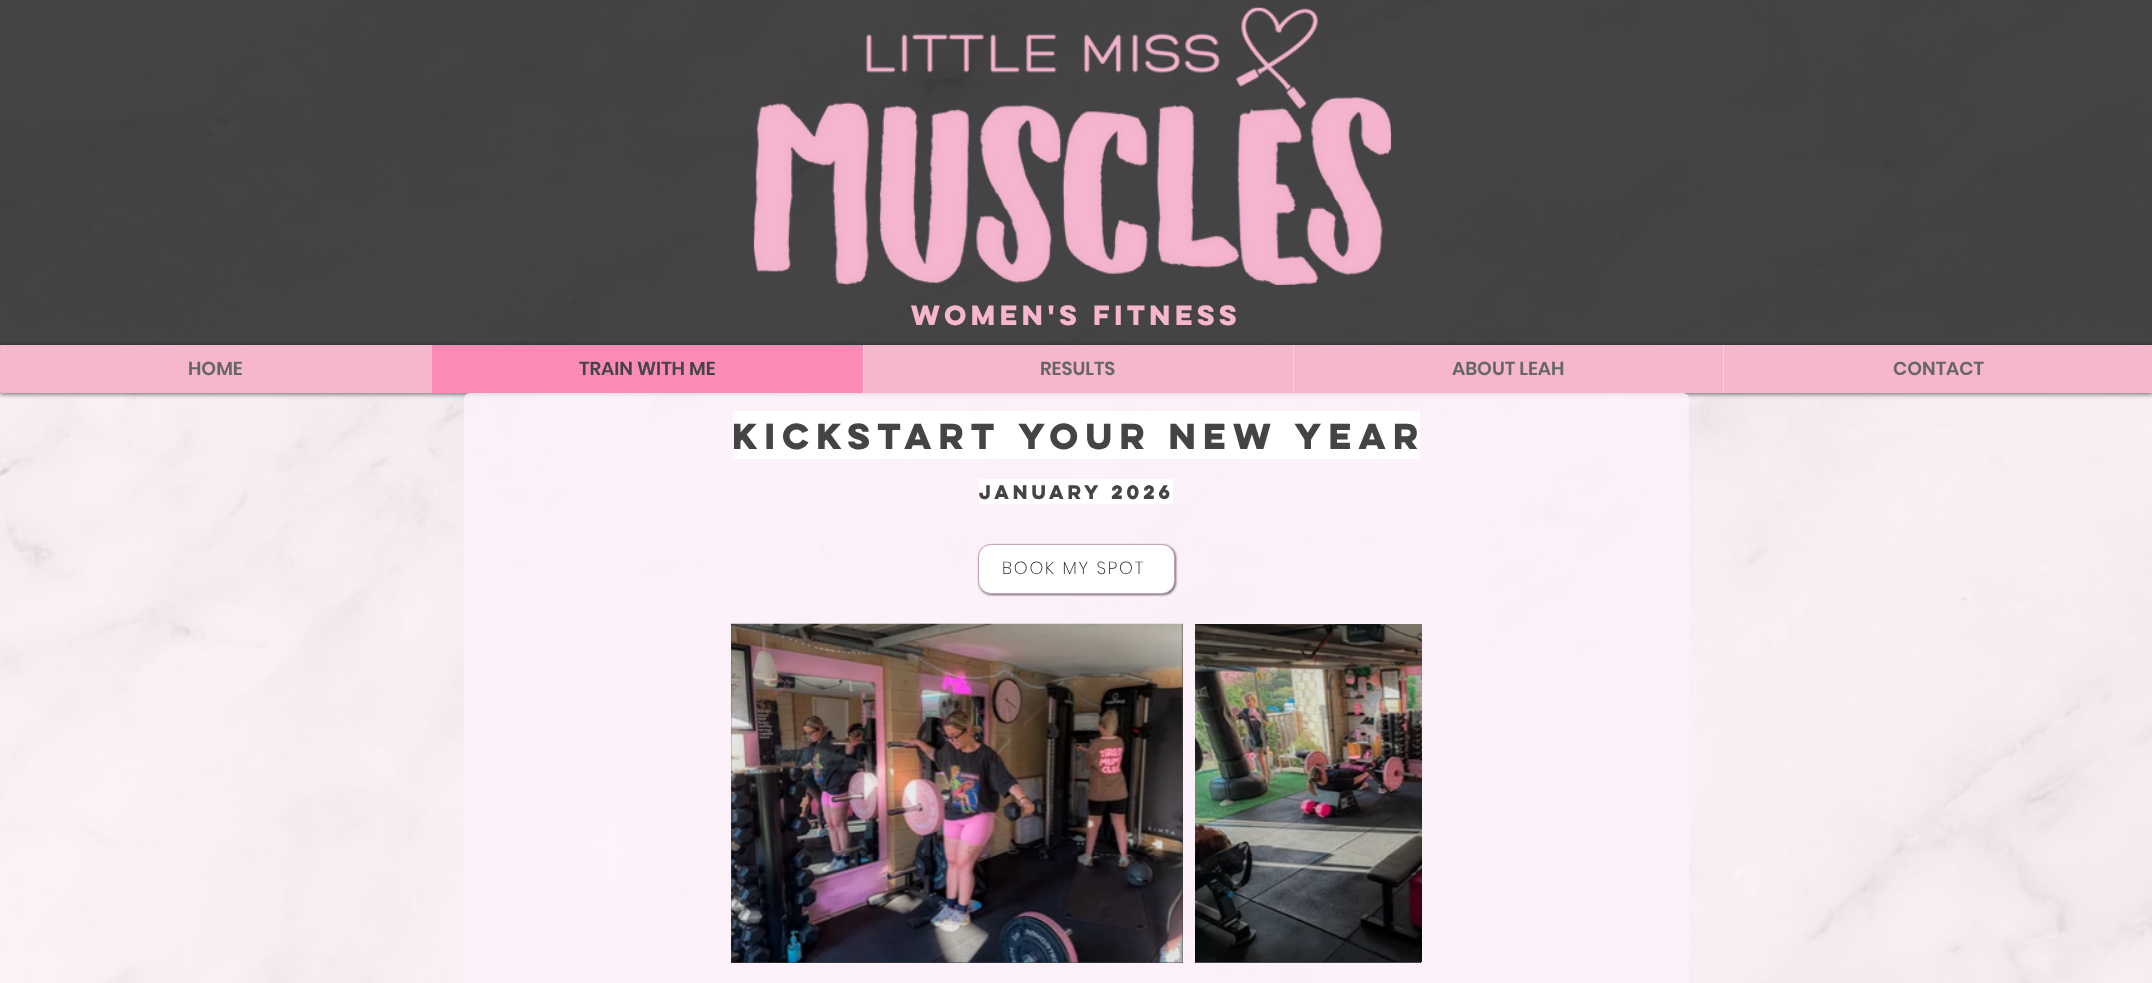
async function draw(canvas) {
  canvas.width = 2152;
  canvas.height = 983;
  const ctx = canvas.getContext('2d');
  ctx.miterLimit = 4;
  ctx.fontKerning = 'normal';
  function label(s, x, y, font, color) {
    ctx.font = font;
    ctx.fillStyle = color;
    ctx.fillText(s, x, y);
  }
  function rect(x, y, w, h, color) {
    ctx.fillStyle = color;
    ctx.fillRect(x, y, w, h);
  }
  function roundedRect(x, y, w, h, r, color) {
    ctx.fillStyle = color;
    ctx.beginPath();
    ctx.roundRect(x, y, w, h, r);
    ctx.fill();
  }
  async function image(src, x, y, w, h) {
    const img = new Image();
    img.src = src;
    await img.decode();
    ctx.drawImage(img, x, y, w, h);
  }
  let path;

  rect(0, 0, 2152, 983, '#fff2fb');
  await image('assets/img1.png', 0, 0, 2152, 983);
  rect(0, 0, 2152, 393, '#222222d6');
  await image('assets/img2.png', 753, 7, 639, 278);
  ctx.letterSpacing = '-1.1px';
  label('Women\'s fitness', 911, 325, 'bold 25px "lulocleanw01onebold"', '#f5b6ce');
  ctx.fillStyle = '#00000099';
  ctx.filter = 'blur(2.5px)';
  ctx.beginPath();
  ctx.rect(0, 346, 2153, 48);
  ctx.fill();
  ctx.filter = 'none';
  roundedRect(0, 345, 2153, 48, 1, '#f5b6ce');
  ctx.letterSpacing = '0px';
  label('HOME', 188, 375, '600 18.75px Poppins', '#666');
  rect(432, 345, 431, 48, '#fc8bb6');
  rect(431, 345, 1, 48, '#fdb6d1');
  label('TRAIN WITH ME', 579, 375, '600 18.75px Poppins', '#444');
  rect(863, 345, 1, 48, '#f9d1e0');
  label('RESULTS', 1040, 375, '600 18.75px Poppins', '#666');
  rect(1293, 345, 1, 48, '#f9d1e0');
  label('ABOUT LEAH', 1452, 375, '600 18.75px Poppins', '#666');
  rect(1723, 345, 1, 48, '#f9d1e0');
  label('CONTACT', 1893, 375, '600 18.75px Poppins', '#666');
  roundedRect(464, 393, 1225, 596, 6, '#fff2fbcc');
  rect(733, 411, 687, 48, '#fff');
  label('KICKSTART YOUR NEW YEAR', 732, 449, 'bold 32.5px "lulocleanw01onebold"', '#444');
  rect(979, 479, 194, 25, '#fff');
  label('January 2026', 979, 499, 'bold 17.5px "lulocleanw01onebold"', '#444');
  ctx.fillStyle = '#666';
  ctx.filter = 'blur(1px)';
  ctx.beginPath();
  ctx.roundRect(979, 545, 197, 50, 13);
  ctx.fill();
  ctx.filter = 'none';
  ctx.fillStyle = '#fff';
  ctx.beginPath();
  ctx.roundRect(978.5, 544.5, 196, 49, 12.5);
  ctx.fill();
  ctx.strokeStyle = '#c8a2bb';
  ctx.stroke();
  ctx.letterSpacing = '1.75px';
  label('BOOK MY SPOT', 1002, 574, '200 17.5px Poppins', '#222');
  rect(731, 624, 452, 339, '#444');
  await image('assets/img3.png', 731, 623, 452, 340);
  rect(1195, 962, 226, 1, '#444');
  await image('assets/img4.png', 1195, 624, 227, 338);
  ctx.fillStyle = '#222222e6';
  path = new Path2D('M1366 771L1368 769L1391 791L1368 814L1366 812L1387 791Z');
  ctx.fill(path);
}

draw(document.querySelector('canvas'));
